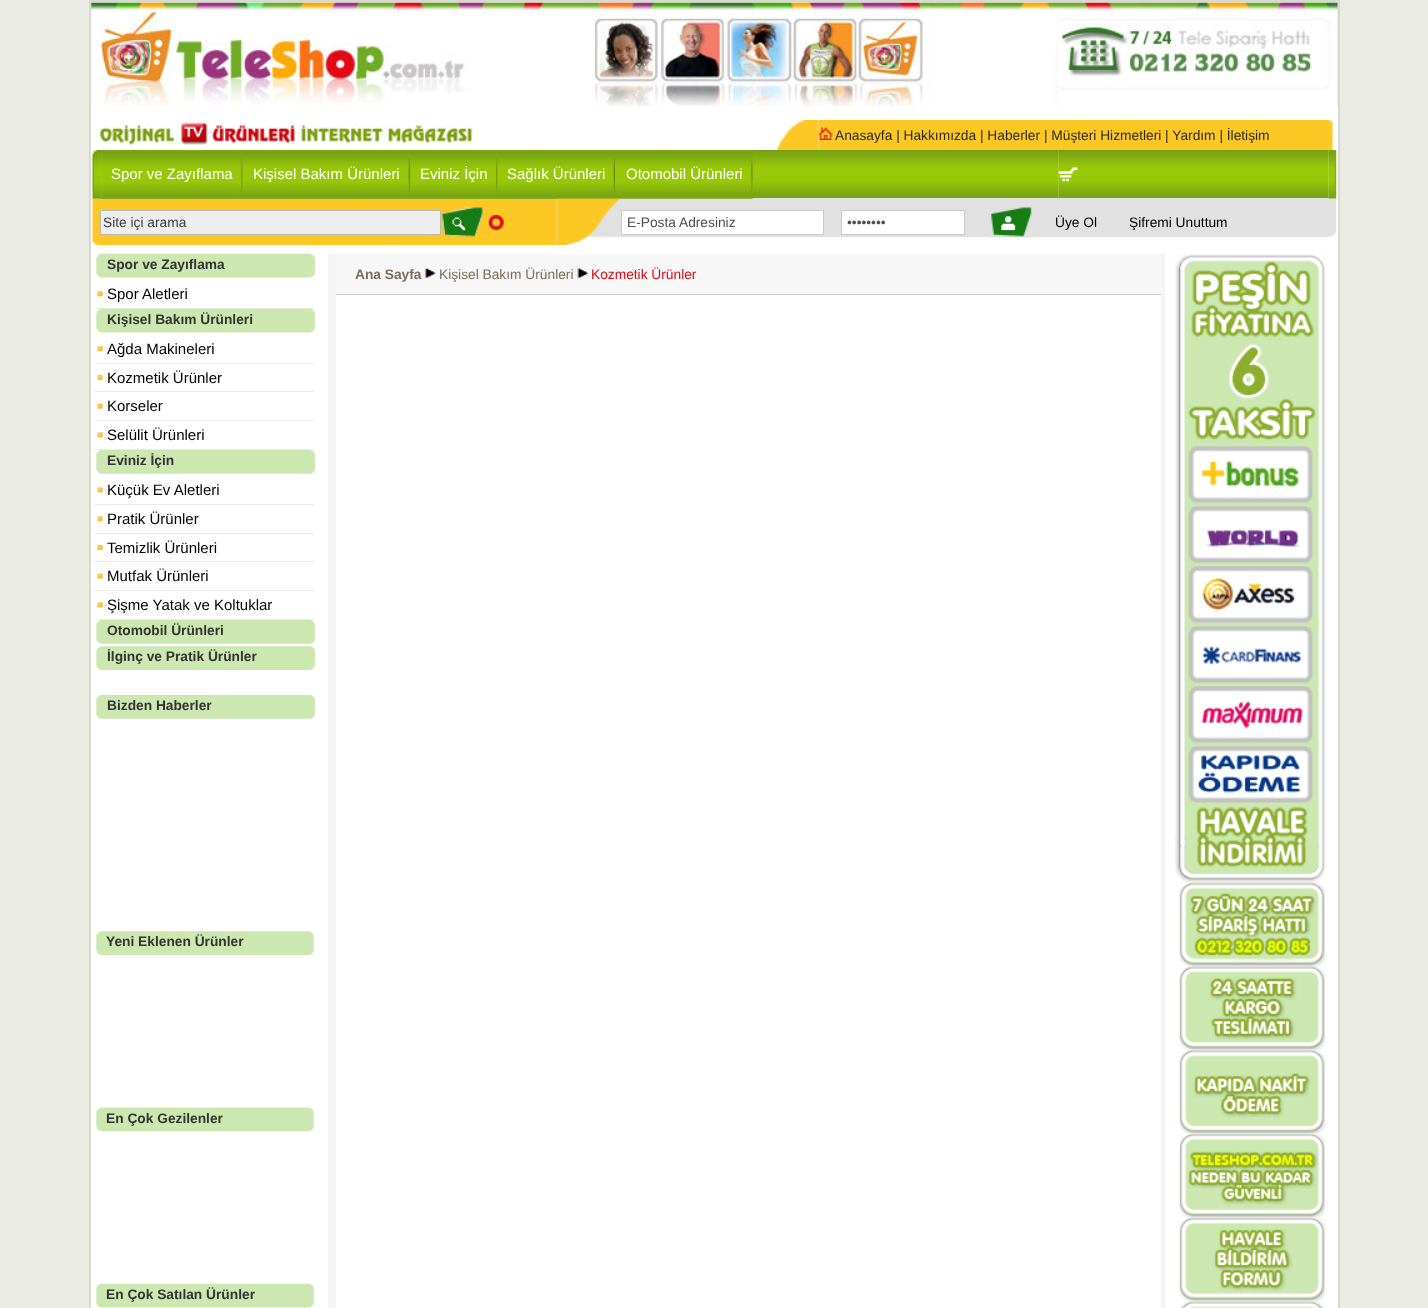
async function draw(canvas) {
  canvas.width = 1428;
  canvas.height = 1308;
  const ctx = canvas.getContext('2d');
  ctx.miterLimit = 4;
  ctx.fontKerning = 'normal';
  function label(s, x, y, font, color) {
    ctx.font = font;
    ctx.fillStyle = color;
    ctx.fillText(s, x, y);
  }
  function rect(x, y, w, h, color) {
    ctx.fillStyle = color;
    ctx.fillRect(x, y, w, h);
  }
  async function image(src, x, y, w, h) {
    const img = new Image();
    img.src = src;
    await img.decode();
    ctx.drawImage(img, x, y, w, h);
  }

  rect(0, 0, 1428, 1308, '#eaece4');
  ctx.strokeStyle = '#d8dad2';
  ctx.lineWidth = 3;
  ctx.strokeRect(90.5, 1.5, 1248, 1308);
  await image('assets/img1.png', 91, 2, 1247, 104);
  rect(91, 106, 1247, 1202, '#fff');
  await image('assets/img2.png', 99, 122, 374, 23);
  await image('assets/img3.png', 777, 120, 42, 30);
  rect(819, 120, 501, 30, '#fdc824');
  await image('assets/img4.png', 818, 127, 15, 13);
  label('Anasayfa | Hakkımızda | Haberler | Müşteri Hizmetleri | Yardım | İletişim', 835, 140, '13.75px Liberation Sans', '#282c23');
  await image('assets/img5.png', 1320, 120, 13, 30);
  await image('assets/img7.png', 101, 150, 958, 49);
  await image('assets/img8.png', 101, 150, 142, 49);
  await image('assets/img6.png', 92, 150, 10, 49);
  label('Spor ve Zayıflama', 111, 179, '15px Liberation Sans', '#fff');
  await image('assets/img9.png', 242, 150, 168, 49);
  label('Kişisel Bakım Ürünleri', 253, 179, '15px Liberation Sans', '#fff');
  await image('assets/img10.png', 410, 150, 88, 49);
  label('Eviniz İçin', 420, 179, '15px Liberation Sans', '#fff');
  await image('assets/img11.png', 497, 150, 118, 49);
  label('Sağlık Ürünleri', 507, 179, '15px Liberation Sans', '#fff');
  rect(618, 198, 711, 39, '#e1e1e1');
  await image('assets/img12.png', 615, 150, 138, 49);
  label('Otomobil Ürünleri', 626, 179, '15px Liberation Sans', '#fff');
  await image('assets/img13.png', 1058, 150, 271, 48);
  await image('assets/img14.png', 1058, 167, 20, 15);
  await image('assets/img15.png', 1328, 150, 9, 49);
  await image('assets/img16.png', 92, 198, 8, 47);
  rect(100, 199, 456, 46, '#fdc824');
  ctx.fillStyle = '#eee';
  ctx.beginPath();
  ctx.rect(100.5, 210.5, 340, 24);
  ctx.fill();
  ctx.strokeStyle = '#bab9b9';
  ctx.lineWidth = 1;
  ctx.stroke();
  label('Site içi arama', 103, 227, '13.75px Liberation Sans', '#404040');
  await image('assets/img17.png', 441, 207, 43, 30);
  await image('assets/img18.png', 488, 215, 16, 15);
  await image('assets/img19.png', 556, 198, 63, 47);
  ctx.fillStyle = '#fff';
  ctx.beginPath();
  ctx.rect(621.5, 210.5, 202, 24);
  ctx.fill();
  ctx.strokeStyle = '#c9c9c9';
  ctx.stroke();
  label('E-Posta Adresiniz', 627, 227, '13.75px Liberation Sans', '#4e4e4e');
  ctx.fillStyle = '#fff';
  ctx.beginPath();
  ctx.rect(841.5, 210.5, 123, 24);
  ctx.fill();
  ctx.stroke();
  label('••••••••', 847, 227, '13.75px Liberation Sans', '#4e4e4e');
  await image('assets/img20.png', 990, 207, 43, 31);
  label('Üye Ol', 1055, 227, '13.75px Liberation Sans', '#000');
  label('Şifremi Unuttum', 1129, 227, '13.75px Liberation Sans', '#000');
  await image('assets/img21.png', 1329, 198, 8, 39);
  await image('assets/img22.png', 96, 253, 219, 25);
  label('Spor ve Zayıflama', 107, 269, 'bold 13.75px Liberation Sans', '#333');
  rect(94, 308, 220, 1, '#ebebeb');
  await image('assets/img23.png', 97, 290, 6, 7);
  label('Spor Aletleri', 107, 299, '15px Liberation Sans', '#000');
  await image('assets/img24.png', 96, 308, 219, 25);
  label('Kişisel Bakım Ürünleri', 107, 324, 'bold 13.75px Liberation Sans', '#333');
  rect(94, 363, 220, 1, '#ebebeb');
  await image('assets/img23.png', 97, 345, 6, 7);
  label('Ağda Makineleri', 107, 354, '15px Liberation Sans', '#000');
  rect(94, 391, 220, 1, '#ebebeb');
  await image('assets/img25.png', 97, 374, 6, 7);
  label('Kozmetik Ürünler', 107, 383, '15px Liberation Sans', '#000');
  rect(94, 420, 220, 1, '#ebebeb');
  await image('assets/img26.png', 97, 402, 6, 7);
  label('Korseler', 107, 411, '15px Liberation Sans', '#000');
  rect(94, 449, 220, 1, '#ebebeb');
  await image('assets/img27.png', 97, 431, 6, 7);
  label('Selülit Ürünleri', 107, 440, '15px Liberation Sans', '#000');
  await image('assets/img28.png', 96, 450, 219, 24);
  label('Eviniz İçin', 107, 465, 'bold 13.75px Liberation Sans', '#333');
  rect(94, 504, 220, 1, '#ebebeb');
  await image('assets/img27.png', 97, 486, 6, 7);
  label('Küçük Ev Aletleri', 107, 495, '15px Liberation Sans', '#000');
  rect(94, 533, 220, 1, '#ebebeb');
  await image('assets/img23.png', 97, 515, 6, 7);
  label('Pratik Ürünler', 107, 524, '15px Liberation Sans', '#000');
  rect(94, 561, 220, 1, '#ebebeb');
  await image('assets/img25.png', 97, 544, 6, 7);
  label('Temizlik Ürünleri', 107, 553, '15px Liberation Sans', '#000');
  rect(94, 590, 220, 1, '#ebebeb');
  await image('assets/img26.png', 97, 572, 6, 7);
  label('Mutfak Ürünleri', 107, 581, '15px Liberation Sans', '#000');
  rect(94, 619, 220, 1, '#ebebeb');
  await image('assets/img27.png', 97, 601, 6, 7);
  label('Şişme Yatak ve Koltuklar', 107, 610, '15px Liberation Sans', '#000');
  await image('assets/img28.png', 96, 620, 219, 24);
  label('Otomobil Ürünleri', 107, 635, 'bold 13.75px Liberation Sans', '#333');
  await image('assets/img29.png', 96, 646, 219, 24);
  label('İlginç ve Pratik Ürünler', 107, 661, 'bold 13.75px Liberation Sans', '#333');
  await image('assets/img28.png', 96, 695, 219, 24);
  label('Bizden Haberler', 107, 710, 'bold 13.75px Liberation Sans', '#333');
  await image('assets/img30.png', 96, 931, 218, 24);
  label('Yeni Eklenen Ürünler', 106, 946, 'bold 13.75px Liberation Sans', '#333');
  await image('assets/img31.png', 96, 1107, 218, 25);
  label('En Çok Gezilenler', 106, 1123, 'bold 13.75px Liberation Sans', '#333');
  await image('assets/img32.png', 96, 1283, 218, 25);
  label('En Çok Satılan Ürünler', 106, 1299, 'bold 13.75px Liberation Sans', '#333');
  rect(328, 254, 8, 1054, '#f5f5f5');
  rect(336, 254, 825, 40, '#f7f7f7');
  rect(336, 294, 825, 1, '#ccc');
  label('Ana Sayfa', 355, 279, 'bold 13.75px Liberation Sans', '#7d6f5e');
  await image('assets/img33.png', 424, 267, 12, 12);
  label('Kişisel Bakım Ürünleri', 439, 279, '13.75px Liberation Sans', '#7d6f5e');
  await image('assets/img34.png', 577, 267, 11, 12);
  label('Kozmetik Ürünler', 591, 279, '13.75px Liberation Sans', '#e20a16');
  rect(1161, 254, 4, 1054, '#f5f5f5');
  await image('assets/img35.png', 1175, 254, 151, 629);
  await image('assets/img36.png', 1179, 882, 146, 85);
  await image('assets/img37.png', 1179, 966, 146, 84);
  await image('assets/img38.png', 1179, 1050, 146, 84);
  await image('assets/img39.png', 1179, 1133, 146, 85);
  await image('assets/img40.png', 1179, 1217, 146, 85);
  await image('assets/img41.png', 1180, 1301, 145, 7);
}

draw(document.querySelector('canvas'));
